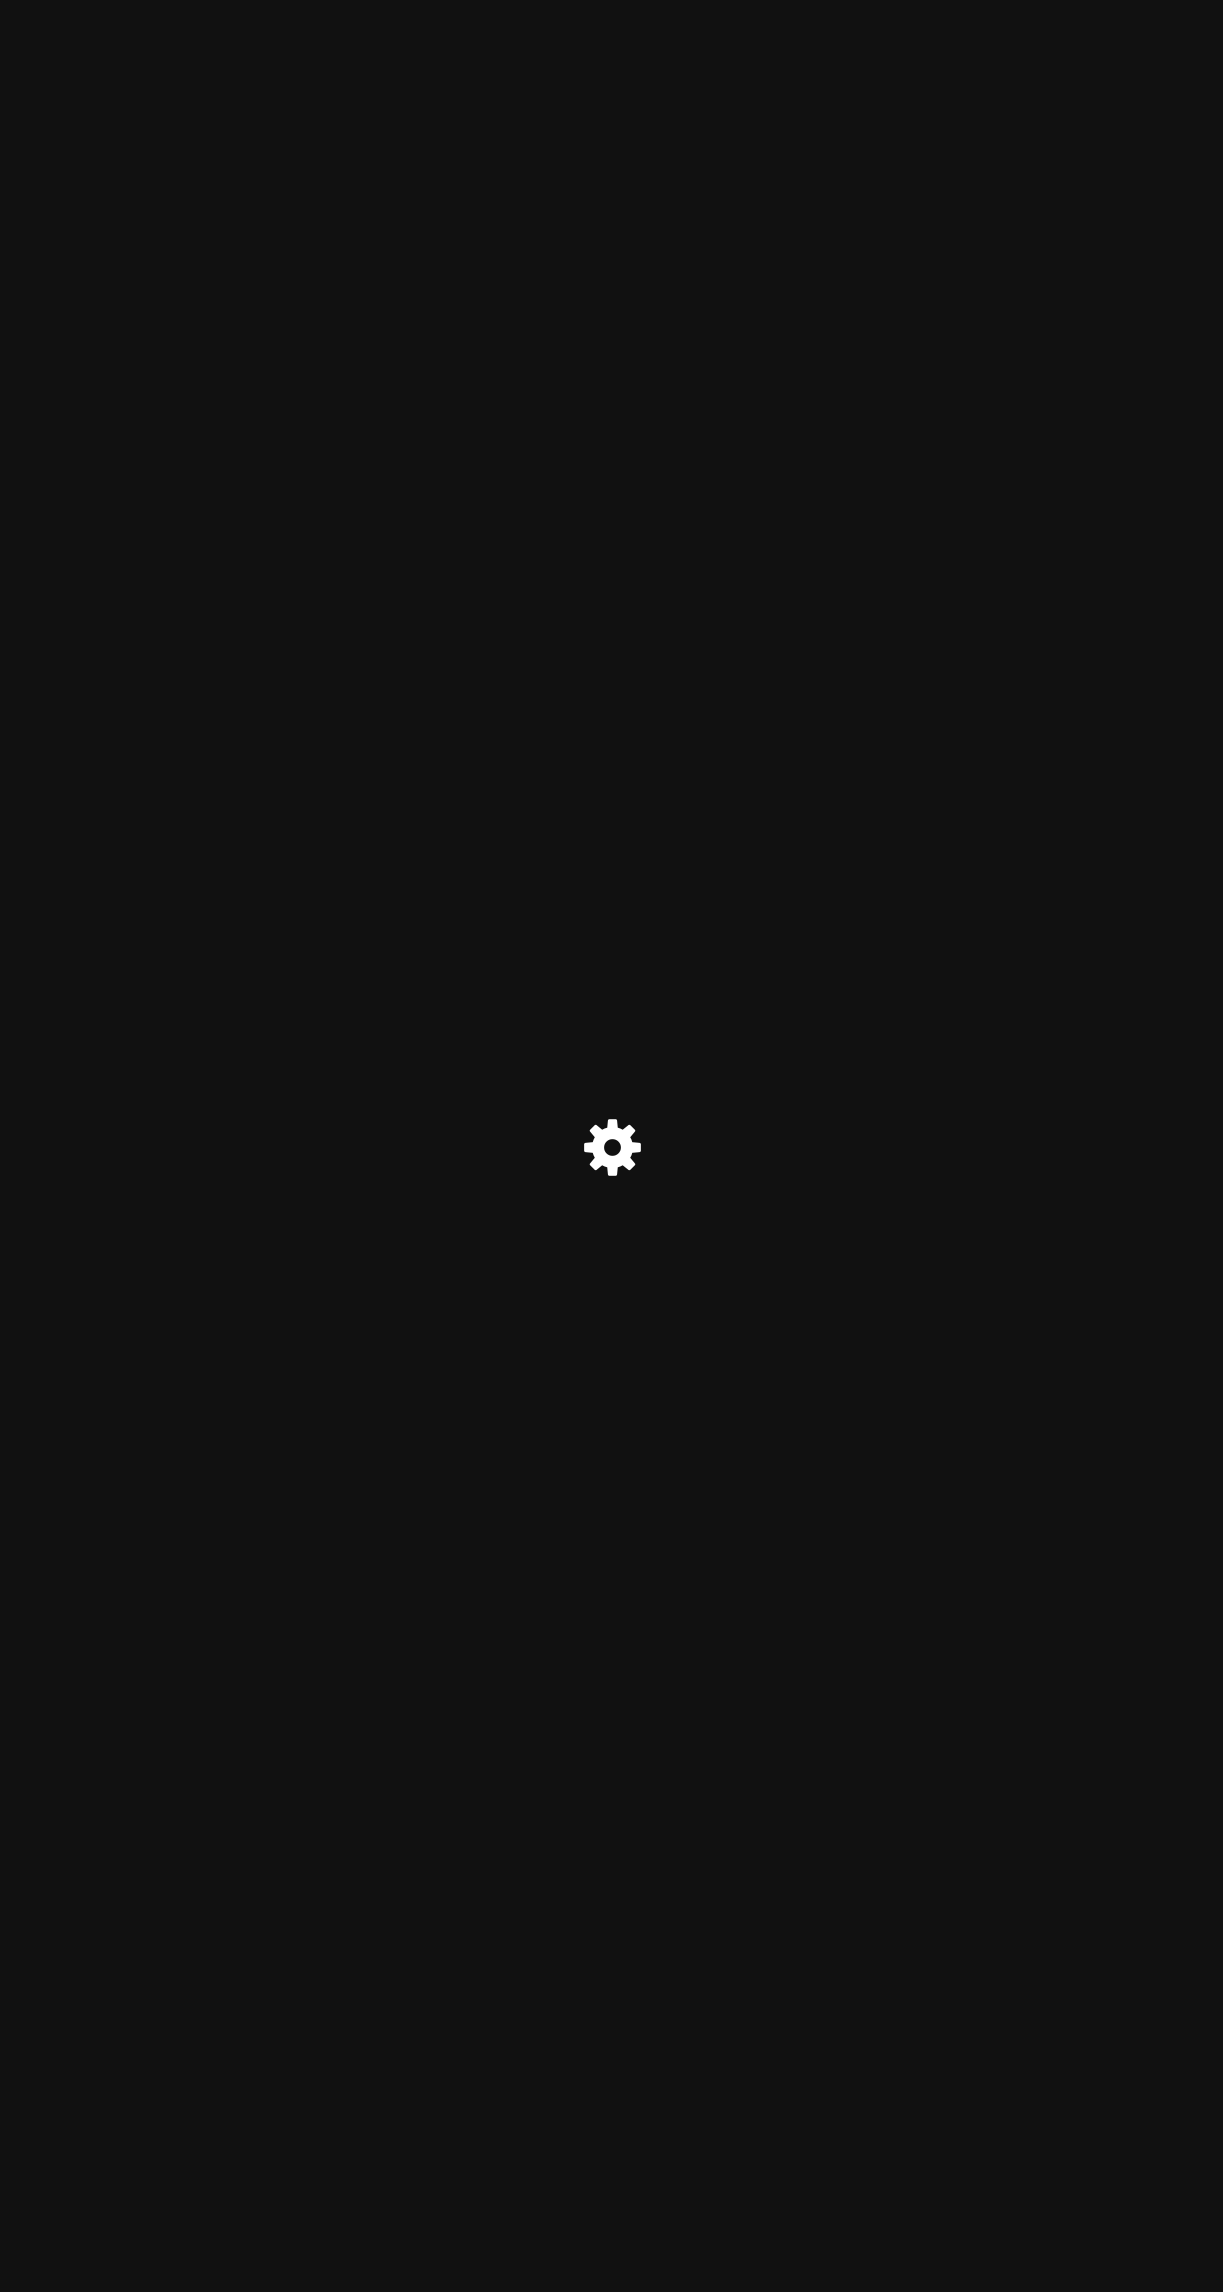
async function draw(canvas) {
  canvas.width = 1223;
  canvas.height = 2292;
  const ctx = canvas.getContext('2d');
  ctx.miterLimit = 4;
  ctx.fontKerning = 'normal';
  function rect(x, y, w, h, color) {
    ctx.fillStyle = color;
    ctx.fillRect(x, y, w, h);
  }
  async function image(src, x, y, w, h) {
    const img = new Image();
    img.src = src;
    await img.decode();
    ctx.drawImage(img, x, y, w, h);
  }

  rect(0, 0, 1223, 2292, '#111');
  await image('assets/img1.png', 584, 1119, 57, 57);
}

draw(document.querySelector('canvas'));
